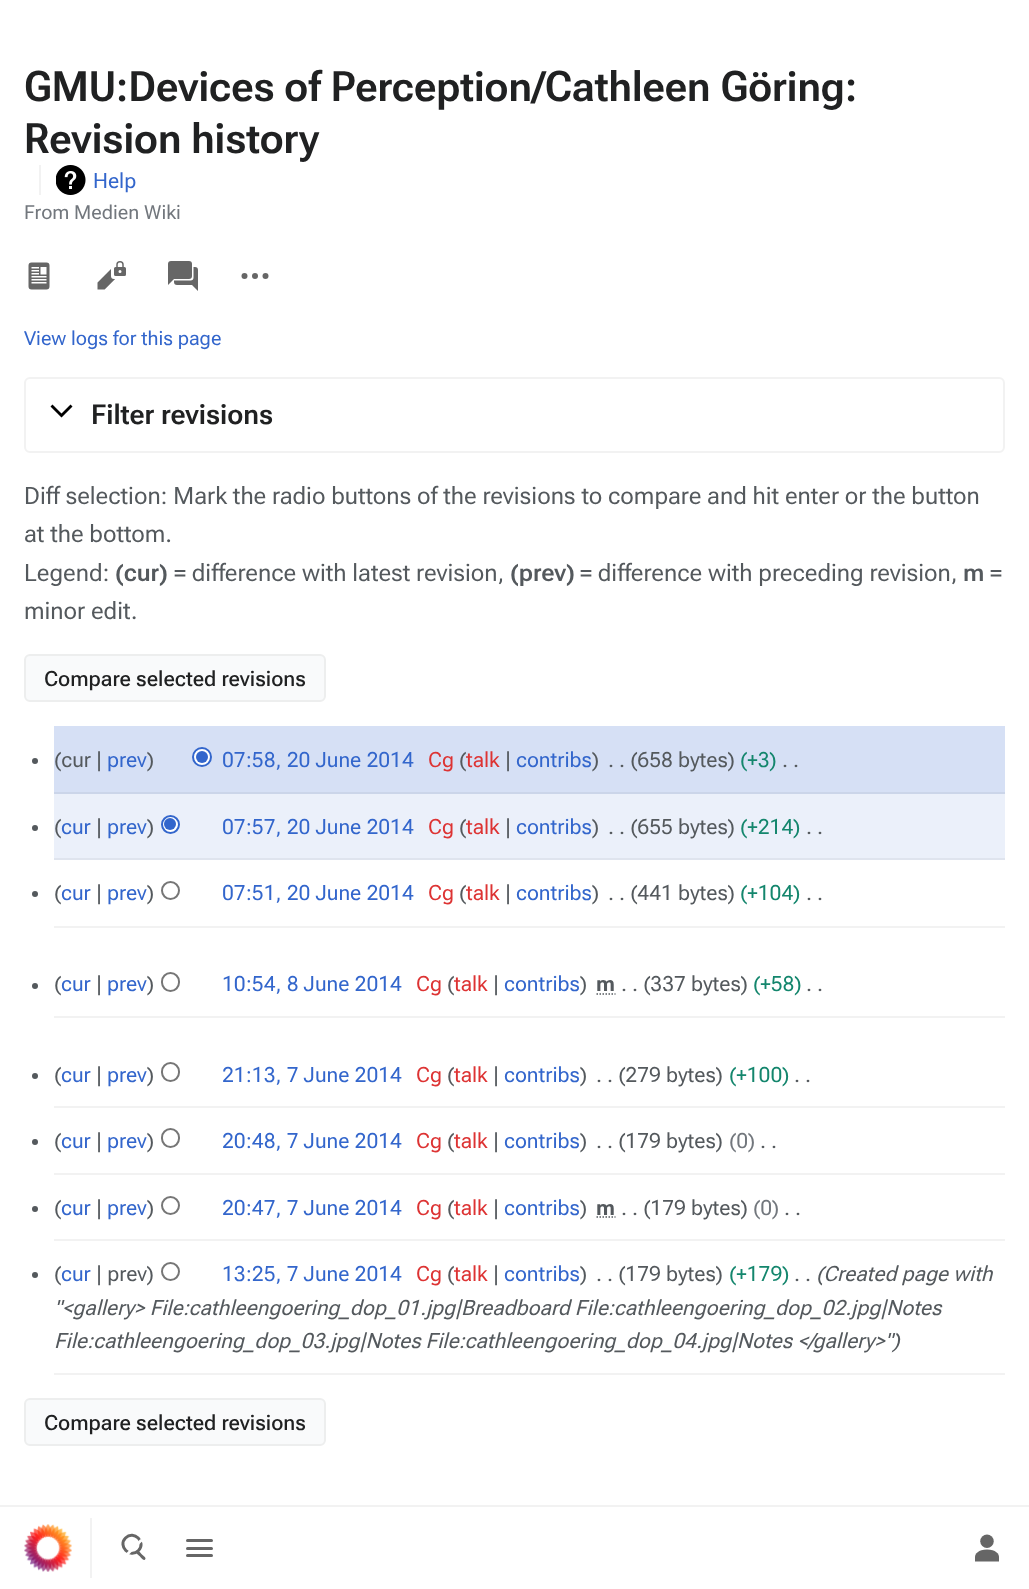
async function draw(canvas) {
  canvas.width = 1029;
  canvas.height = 1589;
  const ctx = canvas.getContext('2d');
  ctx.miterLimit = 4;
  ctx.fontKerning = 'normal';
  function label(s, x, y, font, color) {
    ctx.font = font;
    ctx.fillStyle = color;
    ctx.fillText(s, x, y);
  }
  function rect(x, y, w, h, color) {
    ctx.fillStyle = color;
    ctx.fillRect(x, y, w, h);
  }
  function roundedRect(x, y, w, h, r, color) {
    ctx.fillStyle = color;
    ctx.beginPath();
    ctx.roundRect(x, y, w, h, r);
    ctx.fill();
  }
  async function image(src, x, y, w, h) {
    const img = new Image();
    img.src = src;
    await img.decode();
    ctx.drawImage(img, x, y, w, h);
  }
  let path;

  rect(0, 0, 1029, 1589, '#fff');
  label('GMU:Devices of Perception/Cathleen Göring:', 24, 101, '600 42px "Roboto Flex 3"', '#202122');
  label('Revision history', 24, 153, '600 42px "Roboto Flex 3"', '#202122');
  rect(39, 165, 2, 30, '#f2f2f2');
  await image('assets/img1.png', 56, 165, 30, 30);
  label('Help', 93, 188, '21px "Roboto Flex 3"', '#36c');
  label('From Medien Wiki', 24, 219, '19.5px Roboto Flex', '#72777d');
  await image('assets/img2.png', 28, 262, 22, 28);
  await image('assets/img3.png', 97, 261, 29, 29);
  await image('assets/img4.png', 168, 261, 30, 30);
  await image('assets/img5.png', 241, 273, 28, 6);
  label('View logs for this page', 24, 345, '19.5px Roboto Flex', '#36c');
  ctx.beginPath();
  ctx.roundRect(25, 378, 979, 74, 5);
  ctx.strokeStyle = '#f2f2f2';
  ctx.lineWidth = 2;
  ctx.stroke();
  ctx.fillStyle = '#000';
  path = new Path2D('M70.5 404.5L61.5 413.5L52.5 404.5L50.5 406.5L61.5 417.5L72.5 406.5Z');
  ctx.fill(path);
  label('Filter revisions', 91, 424, '600 27.5px "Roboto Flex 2"', '#202122');
  label('Diff selection: Mark the radio buttons of the revisions to compare and hit enter or the button', 24, 504, '24px "Roboto Flex 2"', '#54595d');
  label('at the bottom.', 24, 542, '24px "Roboto Flex 2"', '#54595d');
  label('Legend:', 24, 581, '24px "Roboto Flex 2"', '#54595d');
  label('(cur)', 115, 581, '600 24px Roboto Flex', '#54595d');
  label('= difference with latest revision,', 174, 581, '24px "Roboto Flex 2"', '#54595d');
  label('(prev)', 510, 581, '600 24px Roboto Flex', '#54595d');
  label('= difference with preceding revision,', 580, 581, '24px "Roboto Flex 2"', '#54595d');
  label('m', 963, 581, '600 24px Roboto Flex', '#54595d');
  label('=', 990, 581, '24px "Roboto Flex 2"', '#54595d');
  label('minor edit.', 24, 619, '24px "Roboto Flex 2"', '#54595d');
  ctx.fillStyle = '#f9fafb';
  ctx.beginPath();
  ctx.roundRect(25, 655, 300, 46, 5);
  ctx.fill();
  ctx.strokeStyle = '#edeeee';
  ctx.stroke();
  label('Compare selected revisions', 44, 686, '500 21px Roboto Flex', '#202122');
  rect(54, 726, 951, 66, '#d6e0f5');
  rect(54, 792, 951, 2, '#cbd5e9');
  ctx.fillStyle = '#54595d';
  ctx.beginPath();
  ctx.arc(35, 761, 3, 0, 2 * Math.PI);
  ctx.fill();
  label('(cur |', 54, 767, '21px "Roboto Flex 3"', '#54595d');
  label('prev', 107, 767, '21px "Roboto Flex 3"', '#36c');
  label(')', 147, 767, '21px "Roboto Flex 3"', '#54595d');
  ctx.fillStyle = '#fff';
  ctx.beginPath();
  ctx.arc(202, 757, 9, 0, 2 * Math.PI);
  ctx.fill();
  ctx.strokeStyle = '#36c';
  ctx.stroke();
  ctx.fillStyle = '#36c';
  ctx.beginPath();
  ctx.arc(202, 757, 6, 0, 2 * Math.PI);
  ctx.fill();
  label('07:58, 20 June 2014', 222, 767, '21px "Roboto Flex 3"', '#36c');
  label('Cg', 428, 767, '21px "Roboto Flex 3"', '#d33');
  label('(', 459, 767, '21px "Roboto Flex 3"', '#54595d');
  label('talk', 466, 767, '21px "Roboto Flex 3"', '#d33');
  label('|', 505, 767, '21px "Roboto Flex 3"', '#54595d');
  label('contribs', 516, 767, '21px "Roboto Flex 3"', '#36c');
  label(')', 592, 767, '21px "Roboto Flex 3"', '#54595d');
  label('. . (658 bytes)', 608, 767, '21px "Roboto Flex 3"', '#54595d');
  label('(+3)', 740, 767, '21px "Roboto Flex 3"', '#14866d');
  label('. .', 782, 767, '21px "Roboto Flex 3"', '#54595d');
  rect(54, 794, 951, 64, '#ebf0fa');
  rect(54, 858, 951, 2, '#dfe4ee');
  ctx.fillStyle = '#54595d';
  ctx.beginPath();
  ctx.arc(35, 828, 3, 0, 2 * Math.PI);
  ctx.fill();
  label('(', 54, 834, '21px "Roboto Flex 3"', '#54595d');
  label('cur', 61, 834, '21px "Roboto Flex 3"', '#36c');
  label('|', 96, 834, '21px "Roboto Flex 3"', '#54595d');
  label('prev', 107, 834, '21px "Roboto Flex 3"', '#36c');
  label(')', 147, 834, '21px "Roboto Flex 3"', '#54595d');
  ctx.fillStyle = '#fff';
  ctx.beginPath();
  ctx.arc(170.5, 824.5, 8.5, 0, 2 * Math.PI);
  ctx.fill();
  ctx.stroke();
  ctx.fillStyle = '#36c';
  ctx.beginPath();
  ctx.arc(170, 824, 6, 0, 2 * Math.PI);
  ctx.fill();
  label('07:57, 20 June 2014', 222, 834, '21px "Roboto Flex 3"', '#36c');
  label('Cg', 428, 834, '21px "Roboto Flex 3"', '#d33');
  label('(', 459, 834, '21px "Roboto Flex 3"', '#54595d');
  label('talk', 466, 834, '21px "Roboto Flex 3"', '#d33');
  label('|', 505, 834, '21px "Roboto Flex 3"', '#54595d');
  label('contribs', 516, 834, '21px "Roboto Flex 3"', '#36c');
  label(')', 592, 834, '21px "Roboto Flex 3"', '#54595d');
  label('. . (655 bytes)', 608, 834, '21px "Roboto Flex 3"', '#54595d');
  label('(+214)', 740, 834, '21px "Roboto Flex 3"', '#14866d');
  label('. .', 806, 834, '21px "Roboto Flex 3"', '#54595d');
  rect(54, 926, 951, 2, '#f2f2f2');
  ctx.fillStyle = '#54595d';
  ctx.beginPath();
  ctx.arc(35, 894, 3, 0, 2 * Math.PI);
  ctx.fill();
  label('(', 54, 900, '21px "Roboto Flex 3"', '#54595d');
  label('cur', 61, 900, '21px "Roboto Flex 3"', '#36c');
  label('|', 96, 900, '21px "Roboto Flex 3"', '#54595d');
  label('prev', 107, 900, '21px "Roboto Flex 3"', '#36c');
  label(')', 147, 900, '21px "Roboto Flex 3"', '#54595d');
  ctx.beginPath();
  ctx.arc(170.5, 890.5, 8.5, 0, 2 * Math.PI);
  ctx.strokeStyle = '#767676';
  ctx.stroke();
  label('07:51, 20 June 2014', 222, 900, '21px "Roboto Flex 3"', '#36c');
  label('Cg', 428, 900, '21px "Roboto Flex 3"', '#d33');
  label('(', 459, 900, '21px "Roboto Flex 3"', '#54595d');
  label('talk', 466, 900, '21px "Roboto Flex 3"', '#d33');
  label('|', 505, 900, '21px "Roboto Flex 3"', '#54595d');
  label('contribs', 516, 900, '21px "Roboto Flex 3"', '#36c');
  label(')', 592, 900, '21px "Roboto Flex 3"', '#54595d');
  label('. . (441 bytes)', 608, 900, '21px "Roboto Flex 3"', '#54595d');
  label('(+104)', 740, 900, '21px "Roboto Flex 3"', '#14866d');
  label('. .', 806, 900, '21px "Roboto Flex 3"', '#54595d');
  rect(54, 1016, 951, 2, '#f2f2f2');
  ctx.fillStyle = '#54595d';
  ctx.beginPath();
  ctx.arc(35, 986, 3, 0, 2 * Math.PI);
  ctx.fill();
  label('(', 54, 991, '21px "Roboto Flex 3"', '#54595d');
  label('cur', 61, 991, '21px "Roboto Flex 3"', '#36c');
  label('|', 96, 991, '21px "Roboto Flex 3"', '#54595d');
  label('prev', 107, 991, '21px "Roboto Flex 3"', '#36c');
  label(')', 147, 991, '21px "Roboto Flex 3"', '#54595d');
  ctx.beginPath();
  ctx.roundRect(162, 973, 17, 18, 8.5);
  ctx.stroke();
  label('10:54, 8 June 2014', 222, 991, '21px "Roboto Flex 3"', '#36c');
  label('Cg', 416, 991, '21px "Roboto Flex 3"', '#d33');
  label('(', 447, 991, '21px "Roboto Flex 3"', '#54595d');
  label('talk', 454, 991, '21px "Roboto Flex 3"', '#d33');
  label('|', 493, 991, '21px "Roboto Flex 3"', '#54595d');
  label('contribs', 504, 991, '21px "Roboto Flex 3"', '#36c');
  label(')', 580, 991, '21px "Roboto Flex 3"', '#54595d');
  label('m', 596, 991, 'bold 21px Roboto Flex', '#54595d');
  path = new Path2D('M596.5 994H615.5');
  ctx.strokeStyle = '#54595d';
  ctx.lineWidth = 1.5;
  ctx.setLineDash([1.5, 1.5]);
  ctx.stroke(path);
  label('. . (337 bytes)', 621, 991, '21px "Roboto Flex 3"', '#54595d');
  label('(+58)', 753, 991, '21px "Roboto Flex 3"', '#14866d');
  label('. .', 806, 991, '21px "Roboto Flex 3"', '#54595d');
  rect(54, 1106, 951, 2, '#f2f2f2');
  ctx.fillStyle = '#54595d';
  ctx.beginPath();
  ctx.arc(35, 1076, 3, 0, 2 * Math.PI);
  ctx.fill();
  label('(', 54, 1082, '21px "Roboto Flex 3"', '#54595d');
  label('cur', 61, 1082, '21px "Roboto Flex 3"', '#36c');
  label('|', 96, 1082, '21px "Roboto Flex 3"', '#54595d');
  label('prev', 107, 1082, '21px "Roboto Flex 3"', '#36c');
  label(')', 147, 1082, '21px "Roboto Flex 3"', '#54595d');
  ctx.beginPath();
  ctx.roundRect(162, 1063, 17, 18, 8.5);
  ctx.strokeStyle = '#767676';
  ctx.lineWidth = 2;
  ctx.setLineDash([]);
  ctx.stroke();
  label('21:13, 7 June 2014', 222, 1082, '21px "Roboto Flex 3"', '#36c');
  label('Cg', 416, 1082, '21px "Roboto Flex 3"', '#d33');
  label('(', 447, 1082, '21px "Roboto Flex 3"', '#54595d');
  label('talk', 454, 1082, '21px "Roboto Flex 3"', '#d33');
  label('|', 493, 1082, '21px "Roboto Flex 3"', '#54595d');
  label('contribs', 504, 1082, '21px "Roboto Flex 3"', '#36c');
  label(')', 580, 1082, '21px "Roboto Flex 3"', '#54595d');
  label('. . (279 bytes)', 596, 1082, '21px "Roboto Flex 3"', '#54595d');
  label('(+100)', 729, 1082, '21px "Roboto Flex 3"', '#14866d');
  label('. .', 794, 1082, '21px "Roboto Flex 3"', '#54595d');
  rect(54, 1173, 951, 2, '#f2f2f2');
  ctx.fillStyle = '#54595d';
  ctx.beginPath();
  ctx.arc(35, 1142, 3, 0, 2 * Math.PI);
  ctx.fill();
  label('(', 54, 1148, '21px "Roboto Flex 3"', '#54595d');
  label('cur', 61, 1148, '21px "Roboto Flex 3"', '#36c');
  label('|', 96, 1148, '21px "Roboto Flex 3"', '#54595d');
  label('prev', 107, 1148, '21px "Roboto Flex 3"', '#36c');
  label(')', 147, 1148, '21px "Roboto Flex 3"', '#54595d');
  ctx.beginPath();
  ctx.roundRect(162, 1129, 17, 18, 8.5);
  ctx.stroke();
  label('20:48, 7 June 2014', 222, 1148, '21px "Roboto Flex 3"', '#36c');
  label('Cg', 416, 1148, '21px "Roboto Flex 3"', '#d33');
  label('(', 447, 1148, '21px "Roboto Flex 3"', '#54595d');
  label('talk', 454, 1148, '21px "Roboto Flex 3"', '#d33');
  label('|', 493, 1148, '21px "Roboto Flex 3"', '#54595d');
  label('contribs', 504, 1148, '21px "Roboto Flex 3"', '#36c');
  label(')', 580, 1148, '21px "Roboto Flex 3"', '#54595d');
  label('. . (179 bytes)', 596, 1148, '21px "Roboto Flex 3"', '#54595d');
  label('(0)', 729, 1148, '21px "Roboto Flex 3"', '#72777d');
  label('. .', 760, 1148, '21px "Roboto Flex 3"', '#54595d');
  rect(54, 1239, 951, 2, '#f2f2f2');
  ctx.fillStyle = '#54595d';
  ctx.beginPath();
  ctx.arc(35, 1209, 3, 0, 2 * Math.PI);
  ctx.fill();
  label('(', 54, 1215, '21px "Roboto Flex 3"', '#54595d');
  label('cur', 61, 1215, '21px "Roboto Flex 3"', '#36c');
  label('|', 96, 1215, '21px "Roboto Flex 3"', '#54595d');
  label('prev', 107, 1215, '21px "Roboto Flex 3"', '#36c');
  label(')', 147, 1215, '21px "Roboto Flex 3"', '#54595d');
  ctx.beginPath();
  ctx.arc(170.5, 1205.5, 8.5, 0, 2 * Math.PI);
  ctx.stroke();
  label('20:47, 7 June 2014', 222, 1215, '21px "Roboto Flex 3"', '#36c');
  label('Cg', 416, 1215, '21px "Roboto Flex 3"', '#d33');
  label('(', 447, 1215, '21px "Roboto Flex 3"', '#54595d');
  label('talk', 454, 1215, '21px "Roboto Flex 3"', '#d33');
  label('|', 493, 1215, '21px "Roboto Flex 3"', '#54595d');
  label('contribs', 504, 1215, '21px "Roboto Flex 3"', '#36c');
  label(')', 580, 1215, '21px "Roboto Flex 3"', '#54595d');
  label('m', 596, 1215, 'bold 21px Roboto Flex', '#54595d');
  path = new Path2D('M596.5 1217H615.5');
  ctx.strokeStyle = '#54595d';
  ctx.lineWidth = 1.5;
  ctx.setLineDash([1.5, 1.5]);
  ctx.stroke(path);
  label('. . (179 bytes)', 621, 1215, '21px "Roboto Flex 3"', '#54595d');
  label('(0)', 753, 1215, '21px "Roboto Flex 3"', '#72777d');
  label('. .', 784, 1215, '21px "Roboto Flex 3"', '#54595d');
  rect(54, 1373, 951, 2, '#f2f2f2');
  ctx.fillStyle = '#54595d';
  ctx.beginPath();
  ctx.arc(35, 1275, 3, 0, 2 * Math.PI);
  ctx.fill();
  label('(', 54, 1281, '21px "Roboto Flex 3"', '#54595d');
  label('cur', 61, 1281, '21px "Roboto Flex 3"', '#36c');
  label('| prev)', 96, 1281, '21px "Roboto Flex 3"', '#54595d');
  ctx.beginPath();
  ctx.arc(170.5, 1271.5, 8.5, 0, 2 * Math.PI);
  ctx.strokeStyle = '#767676';
  ctx.lineWidth = 2;
  ctx.setLineDash([]);
  ctx.stroke();
  label('13:25, 7 June 2014', 222, 1281, '21px "Roboto Flex 3"', '#36c');
  label('Cg', 416, 1281, '21px "Roboto Flex 3"', '#d33');
  label('(', 447, 1281, '21px "Roboto Flex 3"', '#54595d');
  label('talk', 454, 1281, '21px "Roboto Flex 3"', '#d33');
  label('|', 493, 1281, '21px "Roboto Flex 3"', '#54595d');
  label('contribs', 504, 1281, '21px "Roboto Flex 3"', '#36c');
  label(')', 580, 1281, '21px "Roboto Flex 3"', '#54595d');
  label('. . (179 bytes)', 596, 1281, '21px "Roboto Flex 3"', '#54595d');
  label('(+179)', 729, 1281, '21px "Roboto Flex 3"', '#14866d');
  label('(Created page with', 816, 1281, 'italic 21px Roboto Flex', '#54595d');
  label('. .', 794, 1281, '21px "Roboto Flex 3"', '#54595d');
  label('"<gallery> File:cathleengoering_dop_01.jpg|Breadboard File:cathleengoering_dop_02.jpg|Notes', 54, 1315, 'italic 21px Roboto Flex', '#54595d');
  label('File:cathleengoering_dop_03.jpg|Notes File:cathleengoering_dop_04.jpg|Notes <\/gallery>")', 54, 1348, 'italic 21px Roboto Flex', '#54595d');
  ctx.fillStyle = '#f9fafb';
  ctx.beginPath();
  ctx.roundRect(25, 1399, 300, 46, 5);
  ctx.fill();
  ctx.strokeStyle = '#edeeee';
  ctx.stroke();
  label('Compare selected revisions', 44, 1430, '500 21px Roboto Flex', '#202122');
  rect(0, 1505, 1029, 2, '#f2f2f2');
  rect(90, 1518, 2, 60, '#f2f2f2');
  await image('assets/img6.png', 24, 1524, 48, 48);
  ctx.fillStyle = '#666';
  path = new Path2D('M137 1551.5C138.5 1549.5 141 1553.5 142 1554.5C143 1555.5 147 1558 145 1559.5C143.5 1561.5 141 1557.5 140 1556.5C139 1555.5 135 1553 137 1551.5Z');
  ctx.fill(path);
  path = new Path2D('M125.5 1538C134 1529.5 146.5 1542.5 138.5 1550.5C130 1559 117.5 1546 125.5 1538Z');
  ctx.strokeStyle = '#666';
  ctx.lineWidth = 3;
  ctx.stroke(path);
  ctx.fillStyle = '#fff';
  path = new Path2D('M125 1556.5C124.5 1556 124.5 1555 125 1554.5L140 1539.5C140.5 1539 141.5 1539 142 1539.5C142.5 1540 142.5 1541 142 1541.5L127 1556.5C126.5 1557 125.5 1557 125 1556.5Z');
  ctx.fill(path);
  roundedRect(186, 1539, 27, 3, 1.5, '#666');
  roundedRect(186, 1547, 27, 3, 1.5, '#666');
  roundedRect(186, 1554, 27, 3, 1.5, '#666');
  await image('assets/img7.png', 975, 1534, 24, 28);
}

draw(document.querySelector('canvas'));
